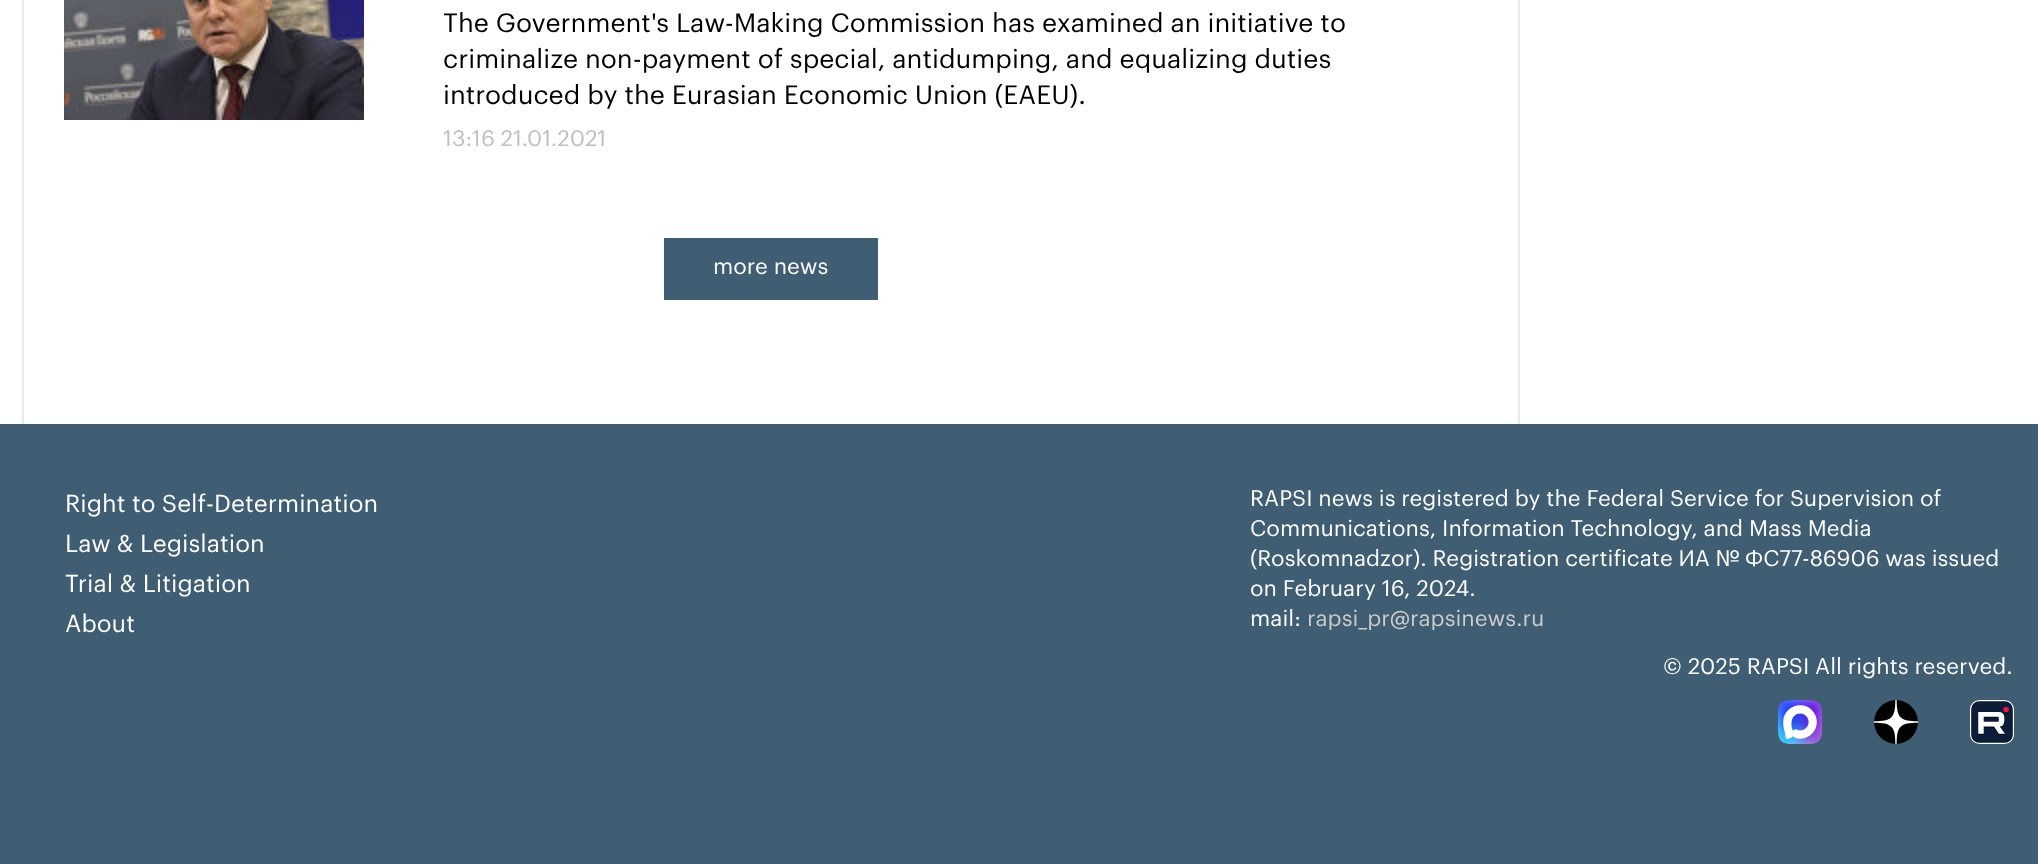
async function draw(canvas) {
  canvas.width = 2038;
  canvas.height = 864;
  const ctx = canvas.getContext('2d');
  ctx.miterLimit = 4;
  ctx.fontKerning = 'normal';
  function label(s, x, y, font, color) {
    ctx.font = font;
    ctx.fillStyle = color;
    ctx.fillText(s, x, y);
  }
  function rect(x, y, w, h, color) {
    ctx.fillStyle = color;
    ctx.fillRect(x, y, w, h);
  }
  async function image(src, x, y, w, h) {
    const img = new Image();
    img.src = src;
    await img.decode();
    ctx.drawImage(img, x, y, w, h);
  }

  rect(0, 0, 2038, 864, '#fff');
  rect(22, 0, 2, 424, '#ebebeb');
  await image('assets/img1.png', 64, 0, 300, 120);
  label('The Government\'s Law-Making Commission has examined an initiative to', 443, 32, '26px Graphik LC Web', '#000');
  label('criminalize non-payment of special, antidumping, and equalizing duties', 443, 68, '26px Graphik LC Web', '#000');
  label('introduced by the Eurasian Economic Union (EAEU).', 443, 104, '26px Graphik LC Web', '#000');
  label('13:16 21.01.2021', 443, 146, '22px Graphik LC Web', '#bfbfbf');
  rect(664, 238, 214, 62, '#3f5d73');
  label('more news', 713, 274, '22px Graphik LC Web', '#fff');
  rect(1518, 0, 2, 424, '#ebebeb');
  rect(0, 424, 2038, 440, '#3f5d73');
  label('Right to Self-Determination', 65, 512, '24px Graphik LC Web', '#fff');
  label('Law & Legislation', 65, 552, '24px Graphik LC Web', '#fff');
  label('Trial & Litigation', 65, 592, '24px Graphik LC Web', '#fff');
  label('About', 65, 632, '24px Graphik LC Web', '#fff');
  label('RAPSI news is registered by the Federal Service for Supervision of', 1250, 506, '22px Graphik LC Web', '#fff');
  label('Communications, Information Technology, and Mass Media', 1250, 536, '22px Graphik LC Web', '#fff');
  label('(Roskomnadzor). Registration certificate ИА № ФС77-86906 was issued', 1250, 566, '22px Graphik LC Web', '#fff');
  label('on February 16, 2024.', 1250, 596, '22px Graphik LC Web', '#fff');
  label('mail:', 1250, 626, '22px Graphik LC Web', '#fff');
  label('rapsi_pr@rapsinews.ru', 1307, 626, '22px Graphik LC Web', '#ccc');
  label('© 2025 RAPSI All rights reserved.', 1663, 674, '22px Graphik LC Web', '#fff');
  await image('assets/img2.png', 1778, 700, 44, 44);
  await image('assets/img3.png', 1874, 700, 44, 44);
  await image('assets/img4.png', 1970, 700, 44, 44);
}

draw(document.querySelector('canvas'));
